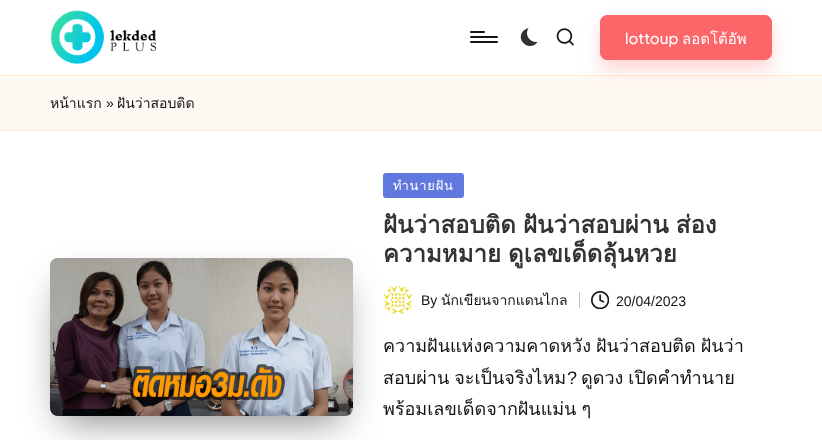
async function draw(canvas) {
  canvas.width = 822;
  canvas.height = 440;
  const ctx = canvas.getContext('2d');
  ctx.miterLimit = 4;
  ctx.fontKerning = 'normal';
  function label(s, x, y, font, color) {
    ctx.font = font;
    ctx.fillStyle = color;
    ctx.fillText(s, x, y);
  }
  function rect(x, y, w, h, color) {
    ctx.fillStyle = color;
    ctx.fillRect(x, y, w, h);
  }
  function roundedRect(x, y, w, h, r, color) {
    ctx.fillStyle = color;
    ctx.beginPath();
    ctx.roundRect(x, y, w, h, r);
    ctx.fill();
  }
  async function image(src, x, y, w, h) {
    const img = new Image();
    img.src = src;
    await img.decode();
    ctx.drawImage(img, x, y, w, h);
  }
  let path;

  rect(0, 0, 822, 440, '#fff');
  await image('assets/img1.png', 50, 10, 107, 54);
  roundedRect(470, 36, 28, 2, 1, '#131315');
  roundedRect(470, 31, 15, 2, 1, '#131315');
  roundedRect(470, 41, 28, 2, 1, '#131315');
  ctx.fillStyle = '#333';
  path = new Path2D('M537.5 42C530 43 524 35 528.5 28C525.5 28.5 523.5 30.5 522 32.5C516.5 42.5 531.5 51.5 537.5 42Z');
  ctx.fill(path);
  await image('assets/img2.png', 556, 28, 18, 18);
  rect(0, 76, 822, 54, '#fff9f3');
  rect(0, 75, 822, 1, '#ffe7d2');
  ctx.fillStyle = '#fc666845';
  ctx.filter = 'blur(9px)';
  ctx.beginPath();
  ctx.roundRect(600, 25, 172, 45, 7);
  ctx.fill();
  ctx.filter = 'none';
  ctx.fillStyle = '#fc6668';
  ctx.beginPath();
  ctx.roundRect(600.5, 15.5, 171, 44, 6.5);
  ctx.fill();
  ctx.strokeStyle = '#fc6668';
  ctx.stroke();
  label('lottoup', 625, 44, '500 15px Plus Jakarta Sans', '#fff');
  label('ลอตโต้อัพ', 682, 44, '15px Loma', '#fff');
  rect(0, 130, 822, 1, '#ffe7d2');
  label('หน้าแรก', 50, 108, '14px Loma', '#131315');
  label('»', 106, 108, '14px Liberation Sans', '#131315');
  label('ฝันว่าสอบติด', 117, 108, '14px Loma', '#131315');
  await image('assets/img4.png', 383, 285, 30, 29);
  ctx.fillStyle = '#00000080';
  ctx.filter = 'blur(19px)';
  ctx.beginPath();
  ctx.rect(62, 286, 279, 134);
  ctx.fill();
  ctx.filter = 'none';
  roundedRect(50, 258, 303, 158, 8, '#0000002e');
  await image('assets/img3.png', 50, 258, 303, 158);
  roundedRect(383, 173, 81, 25, 3, '#6178df');
  ctx.letterSpacing = '0.75px';
  label('ทำนายฝัน', 393, 190, '13px Loma', '#fff');
  ctx.letterSpacing = '0px';
  ctx.wordSpacing = '-1px';
  label('ฝันว่าสอบติด ฝันว่าสอบผ่าน ส่อง', 383, 233, 'bold 24px Loma', '#333');
  label('ความหมาย ดูเลขเด็ดลุ้นหวย', 383, 262, 'bold 24px Loma', '#333');
  ctx.wordSpacing = '0px';
  label('By', 421, 305, '14px Liberation Sans', '#131315');
  label('นักเขียนจากแดนไกล', 441, 305, '14px Loma', '#131315');
  rect(579, 292, 1, 16, '#bfbfbf');
  await image('assets/img5.png', 591, 291, 18, 18);
  label('20/04/2023', 616, 306, '14px Liberation Sans', '#131315');
  ctx.wordSpacing = '-1px';
  label('ความฝันแห่งความคาดหวัง ฝันว่าสอบติด ฝันว่า', 383, 352, '18px Loma', '#131315');
  label('สอบผ่าน จะเป็นจริงไหม', 383, 384, '18px Loma', '#131315');
  ctx.wordSpacing = '0px';
  label('?', 567, 384, '18px Liberation Sans', '#131315');
  ctx.wordSpacing = '-1px';
  label('ดูดวง เปิดคำทำนาย', 581, 384, '18px Loma', '#131315');
  label('พร้อมเลขเด็ดจากฝันแม่น ๆ', 383, 415, '18px Loma', '#131315');
}

draw(document.querySelector('canvas'));
